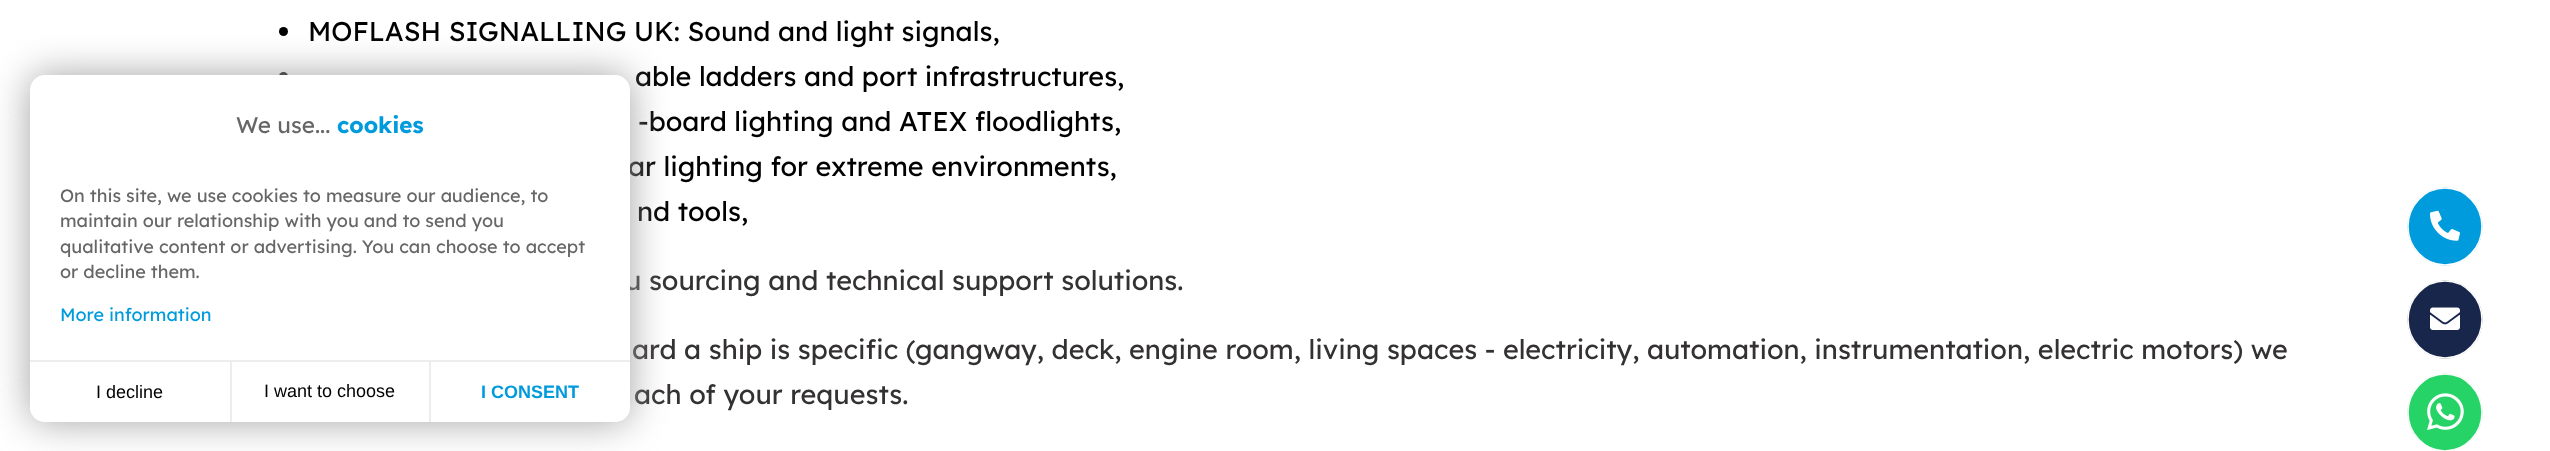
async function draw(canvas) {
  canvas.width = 2550;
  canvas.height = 451;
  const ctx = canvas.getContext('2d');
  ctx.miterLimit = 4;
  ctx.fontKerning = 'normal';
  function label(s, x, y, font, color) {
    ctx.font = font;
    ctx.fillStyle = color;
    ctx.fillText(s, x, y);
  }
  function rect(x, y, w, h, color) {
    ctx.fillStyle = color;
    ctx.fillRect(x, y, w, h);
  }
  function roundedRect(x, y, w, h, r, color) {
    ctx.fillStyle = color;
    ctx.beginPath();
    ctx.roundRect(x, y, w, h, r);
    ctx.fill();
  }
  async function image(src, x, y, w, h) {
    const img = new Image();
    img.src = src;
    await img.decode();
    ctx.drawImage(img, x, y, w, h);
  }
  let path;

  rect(0, 0, 2550, 451, '#fff');
  ctx.fillStyle = '#000';
  ctx.beginPath();
  ctx.arc(283.5, 31.5, 4.5, 0, 2 * Math.PI);
  ctx.fill();
  label('MOFLASH SIGNALLING UK: Sound and light signals,', 308, 41, '27px Lexend Deca', '#000');
  ctx.beginPath();
  ctx.arc(283.5, 76.5, 4.5, 0, 2 * Math.PI);
  ctx.fill();
  label('able ladders and port infrastructures,', 635, 86, '27px Lexend Deca', '#000');
  label('-board lighting and ATEX floodlights,', 638, 131, '27px Lexend Deca', '#000');
  label('ar lighting for extreme environments,', 628, 176, '27px Lexend Deca', '#000');
  label('nd tools,', 637, 221, '27px Lexend Deca', '#000');
  label('u sourcing and technical support solutions.', 625, 290, '27px Lexend Deca', '#333132');
  label('ard a ship is specific (gangway, deck, engine room, living spaces - electricity, automation, instrumentation, electric motors) we', 632, 359, '27px Lexend Deca', '#333132');
  label('ach of your requests.', 634, 404, '27px Lexend Deca', '#333132');
  ctx.fillStyle = '#a3a3a3';
  ctx.filter = 'blur(19px)';
  ctx.beginPath();
  ctx.roundRect(30, 75, 600, 347, 15);
  ctx.fill();
  ctx.filter = 'none';
  roundedRect(30, 75, 600, 347, 15, '#fff');
  label('We use...', 236, 133, '22.5px Lexend Deca', '#666');
  label('cookies', 337, 133, 'bold 22.5px Lexend Deca', '#009bdd');
  label('On this site, we use cookies to measure our audience, to', 60, 202, '18px Lexend Deca', '#666');
  label('maintain our relationship with you and to send you', 60, 227, '18px Lexend Deca', '#666');
  label('qualitative content or advertising. You can choose to accept', 60, 253, '18px Lexend Deca', '#666');
  label('or decline them.', 60, 278, '18px Lexend Deca', '#666');
  label('More information', 60, 321, '18px Lexend Deca', '#009bdd');
  rect(30, 360, 600, 2, '#ededed');
  ctx.fillStyle = '#fff';
  ctx.beginPath();
  ctx.roundRect(30, 362, 200, 60, [0, 0, 0, 15]);
  ctx.fill();
  label('I decline', 96, 398, '18px Liberation Sans', '#000');
  rect(429, 362, 2, 60, '#ededed');
  rect(230, 362, 2, 60, '#ededed');
  label('I want to choose', 264, 397, '18px Liberation Sans', '#000');
  ctx.fillStyle = '#fff';
  ctx.beginPath();
  ctx.roundRect(431, 362, 199, 60, [0, 0, 15, 0]);
  ctx.fill();
  label('I CONSENT', 481, 398, 'bold 18px Liberation Sans', '#009bdd');
  ctx.beginPath();
  ctx.ellipse(2445, 226.5, 37.5, 39, 0, 0, 2 * Math.PI);
  ctx.fill();
  path = new Path2D('M2445 188C2465.5 188 2482 205.5 2482 226.5C2482 247.5 2465.5 265 2445 265C2424.5 265 2408 247.5 2408 226.5C2408 205.5 2424.5 188 2445 188Z');
  ctx.strokeStyle = '#fff';
  ctx.lineWidth = 1.5;
  ctx.stroke(path);
  await image('assets/img1.png', 2430, 210, 30, 31);
  ctx.fillStyle = '#18264b';
  ctx.beginPath();
  ctx.ellipse(2445, 319.5, 37.5, 39, 0, 0, 2 * Math.PI);
  ctx.fill();
  path = new Path2D('M2445 281C2465.5 281 2482 298.5 2482 319.5C2482 340.5 2465.5 358 2445 358C2424.5 358 2408 340.5 2408 319.5C2408 298.5 2424.5 281 2445 281Z');
  ctx.stroke(path);
  await image('assets/img2.png', 2430, 307, 30, 23);
  ctx.fillStyle = '#25d366';
  ctx.beginPath();
  ctx.ellipse(2445, 412.5, 37.5, 39, 0, 0, 2 * Math.PI);
  ctx.fill();
  path = new Path2D('M2445 374C2465.5 374 2482 391.5 2482 412.5C2482 433.5 2465.5 451 2445 451C2424.5 451 2408 433.5 2408 412.5C2408 391.5 2424.5 374 2445 374Z');
  ctx.stroke(path);
  await image('assets/img3.png', 2427, 393, 37, 38);
}

draw(document.querySelector('canvas'));
